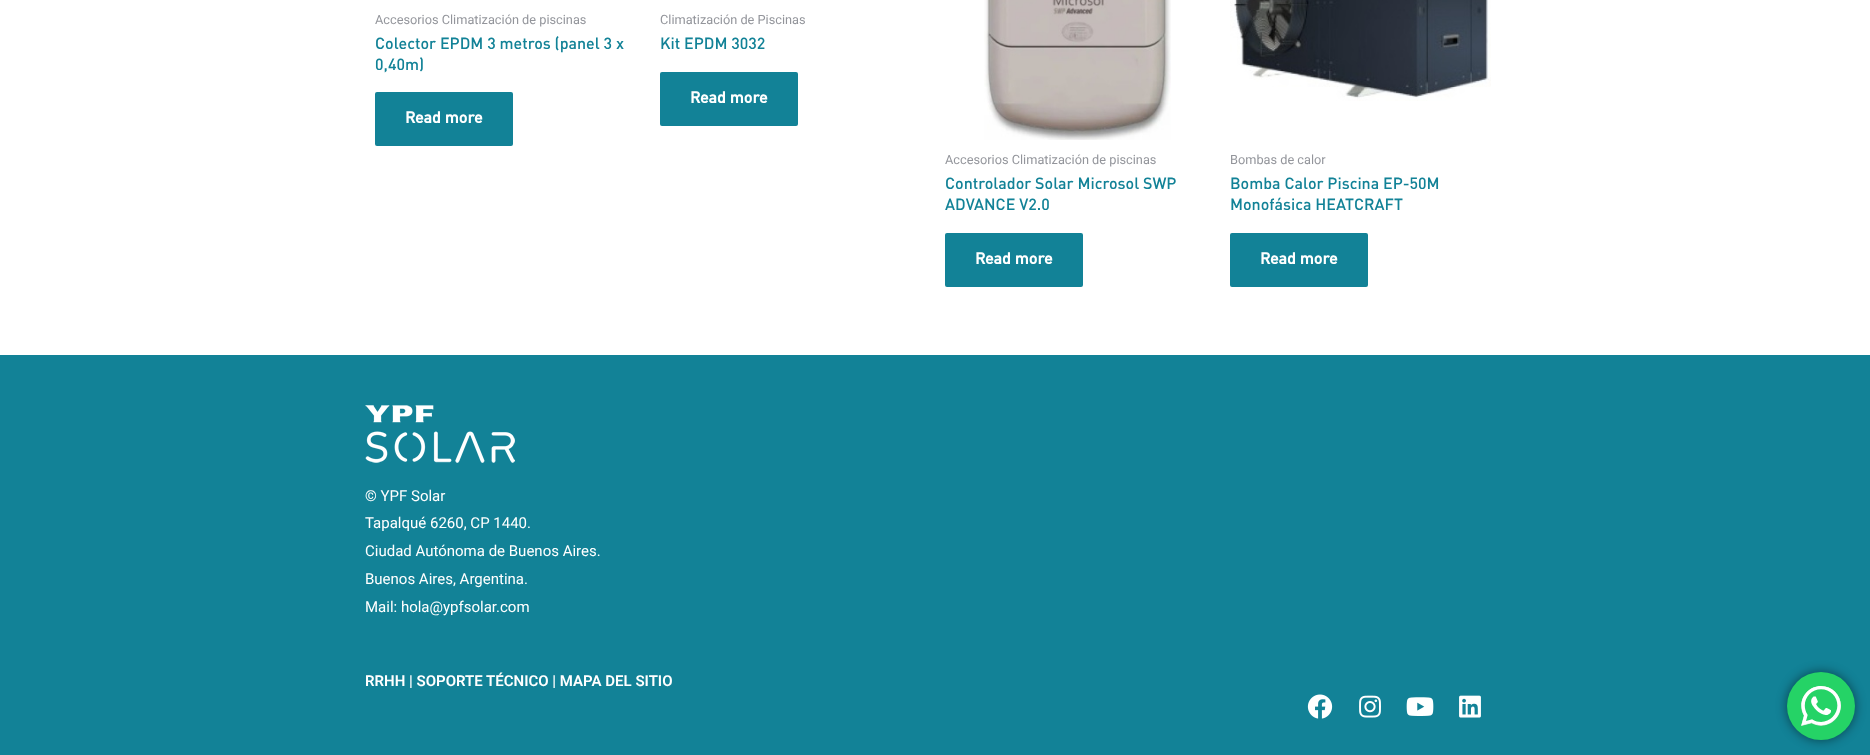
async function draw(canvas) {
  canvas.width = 1870;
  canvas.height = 755;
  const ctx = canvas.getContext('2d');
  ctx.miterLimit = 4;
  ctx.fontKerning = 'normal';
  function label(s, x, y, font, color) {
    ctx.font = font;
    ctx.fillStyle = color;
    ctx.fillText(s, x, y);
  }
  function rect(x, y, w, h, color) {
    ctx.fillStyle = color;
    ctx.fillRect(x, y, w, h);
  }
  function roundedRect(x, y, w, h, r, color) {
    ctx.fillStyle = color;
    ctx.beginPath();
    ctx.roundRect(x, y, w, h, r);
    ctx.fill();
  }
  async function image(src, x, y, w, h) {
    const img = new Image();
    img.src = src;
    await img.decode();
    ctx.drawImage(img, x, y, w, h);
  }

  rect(0, 0, 1870, 755, '#fff');
  label('Accesorios Climatización de piscinas', 375, 24, '12.75px Roboto', '#93959b');
  label('Colector EPDM 3 metros (panel 3 x', 375, 49, '500 16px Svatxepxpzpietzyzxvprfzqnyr', '#128297');
  label('0,40m)', 375, 70, '500 16px Svatxepxpzpietzyzxvprfzqnyr', '#128297');
  roundedRect(375, 92, 138, 54, 2, '#128297');
  label('Read more', 405, 123, 'bold 16px Svatxepxpzpietzyzxvprfzqnyr', '#fff');
  label('Climatización de Piscinas', 660, 24, '12.75px Roboto', '#93959b');
  label('Kit EPDM 3032', 660, 49, '500 16px Svatxepxpzpietzyzxvprfzqnyr', '#128297');
  roundedRect(660, 72, 138, 54, 2, '#128297');
  label('Read more', 690, 103, 'bold 16px Svatxepxpzpietzyzxvprfzqnyr', '#fff');
  await image('assets/img1.png', 984, 0, 187, 140);
  label('Accesorios Climatización de piscinas', 945, 164, '12.75px Roboto', '#93959b');
  label('Controlador Solar Microsol SWP', 945, 189, '500 16px Svatxepxpzpietzyzxvprfzqnyr', '#128297');
  label('ADVANCE V2.0', 945, 210, '500 16px Svatxepxpzpietzyzxvprfzqnyr', '#128297');
  roundedRect(945, 233, 138, 54, 2, '#128297');
  label('Read more', 975, 264, 'bold 16px Svatxepxpzpietzyzxvprfzqnyr', '#fff');
  await image('assets/img2.png', 1230, 0, 261, 101);
  label('Bombas de calor', 1230, 164, '12.75px Roboto', '#93959b');
  label('Bomba Calor Piscina EP-50M', 1230, 189, '500 16px Svatxepxpzpietzyzxvprfzqnyr', '#128297');
  label('Monofásica HEATCRAFT', 1230, 210, '500 16px Svatxepxpzpietzyzxvprfzqnyr', '#128297');
  roundedRect(1230, 233, 138, 54, 2, '#128297');
  label('Read more', 1260, 264, 'bold 16px Svatxepxpzpietzyzxvprfzqnyr', '#fff');
  rect(0, 355, 1870, 400, '#128297');
  await image('assets/img3.png', 365, 405, 150, 58);
  label('© YPF Solar', 365, 501, '15px Roboto', '#fff');
  label('Tapalqué 6260, CP 1440.', 365, 528, '15px Roboto', '#fff');
  label('Ciudad Autónoma de Buenos Aires.', 365, 556, '15px Roboto', '#fff');
  label('Buenos Aires, Argentina.', 365, 584, '15px Roboto', '#fff');
  label('Mail: hola@ypfsolar.com', 365, 612, '15px Roboto', '#fff');
  label('RRHH | SOPORTE TÉCNICO | MAPA DEL SITIO', 365, 686, '600 15px Roboto', '#fff');
  await image('assets/img4.png', 1307, 694, 26, 25);
  await image('assets/img5.png', 1359, 695, 22, 23);
  await image('assets/img6.png', 1406, 697, 28, 19);
  await image('assets/img7.png', 1459, 695, 22, 23);
  ctx.fillStyle = '#00000080';
  ctx.filter = 'blur(5.5px)';
  ctx.beginPath();
  ctx.roundRect(1787, 672, 68, 68, 34);
  ctx.fill();
  ctx.filter = 'none';
  ctx.fillStyle = '#25d366';
  ctx.beginPath();
  ctx.arc(1821, 706, 34, 0, 2 * Math.PI);
  ctx.fill();
  await image('assets/img8.png', 1801, 686, 40, 40);
}

draw(document.querySelector('canvas'));
